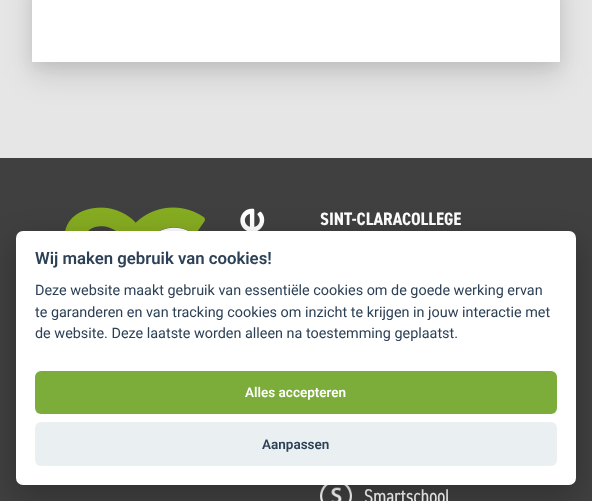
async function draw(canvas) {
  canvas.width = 592;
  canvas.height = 501;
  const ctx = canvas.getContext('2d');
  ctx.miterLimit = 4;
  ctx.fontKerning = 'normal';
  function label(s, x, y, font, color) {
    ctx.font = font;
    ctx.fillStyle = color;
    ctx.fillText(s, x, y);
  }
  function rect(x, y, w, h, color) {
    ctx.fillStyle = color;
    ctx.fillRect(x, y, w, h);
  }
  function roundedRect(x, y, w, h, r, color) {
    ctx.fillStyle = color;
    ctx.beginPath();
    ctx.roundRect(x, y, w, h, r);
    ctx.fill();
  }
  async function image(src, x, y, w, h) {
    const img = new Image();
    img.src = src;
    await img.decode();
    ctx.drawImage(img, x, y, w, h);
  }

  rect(0, 0, 592, 501, '#e6e6e6');
  ctx.fillStyle = '#00000014';
  ctx.filter = 'blur(7.5px)';
  ctx.beginPath();
  ctx.rect(32, -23, 528, 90);
  ctx.fill();
  ctx.filter = 'none';
  ctx.fillStyle = '#0000001c';
  ctx.filter = 'blur(15px)';
  ctx.beginPath();
  ctx.rect(32, -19, 528, 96);
  ctx.fill();
  ctx.filter = 'none';
  rect(32, 0, 528, 62, '#fff');
  rect(0, 158, 592, 343, '#404040');
  await image('assets/img1.png', 65, 207, 200, 24);
  label('SINT-CLARACOLLEGE', 320, 225, 'bold 18px "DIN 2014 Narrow"', '#fff');
  await image('assets/img2.png', 320, 485, 32, 16);
  label('Smartschool', 364, 503, '20px "DIN 2014 Narrow"', '#fff');
  ctx.fillStyle = '#02020347';
  ctx.filter = 'blur(15px)';
  ctx.beginPath();
  ctx.roundRect(16, 241, 560, 254, 7);
  ctx.fill();
  ctx.filter = 'none';
  roundedRect(16, 231, 560, 254, 7, '#fff');
  label('Wij maken gebruik van cookies!', 35, 264, '600 16.75px Roboto', '#2d4156');
  label('Deze website maakt gebruik van essentiële cookies om de goede werking ervan', 35, 295, '14.4px Roboto', '#2d4156');
  label('te garanderen en van tracking cookies om inzicht te krijgen in jouw interactie met', 35, 317, '14.4px Roboto', '#2d4156');
  label('de website. Deze laatste worden alleen na toestemming geplaatst.', 35, 338, '14.4px Roboto', '#2d4156');
  roundedRect(35, 371, 522, 43, 6, '#7cac39');
  label('Alles accepteren', 245, 397, '600 13.5px Roboto', '#fff');
  roundedRect(35, 422, 522, 44, 6, '#eaeff2');
  label('Aanpassen', 262, 449, '600 13.5px Roboto', '#2d4156');
}

draw(document.querySelector('canvas'));
